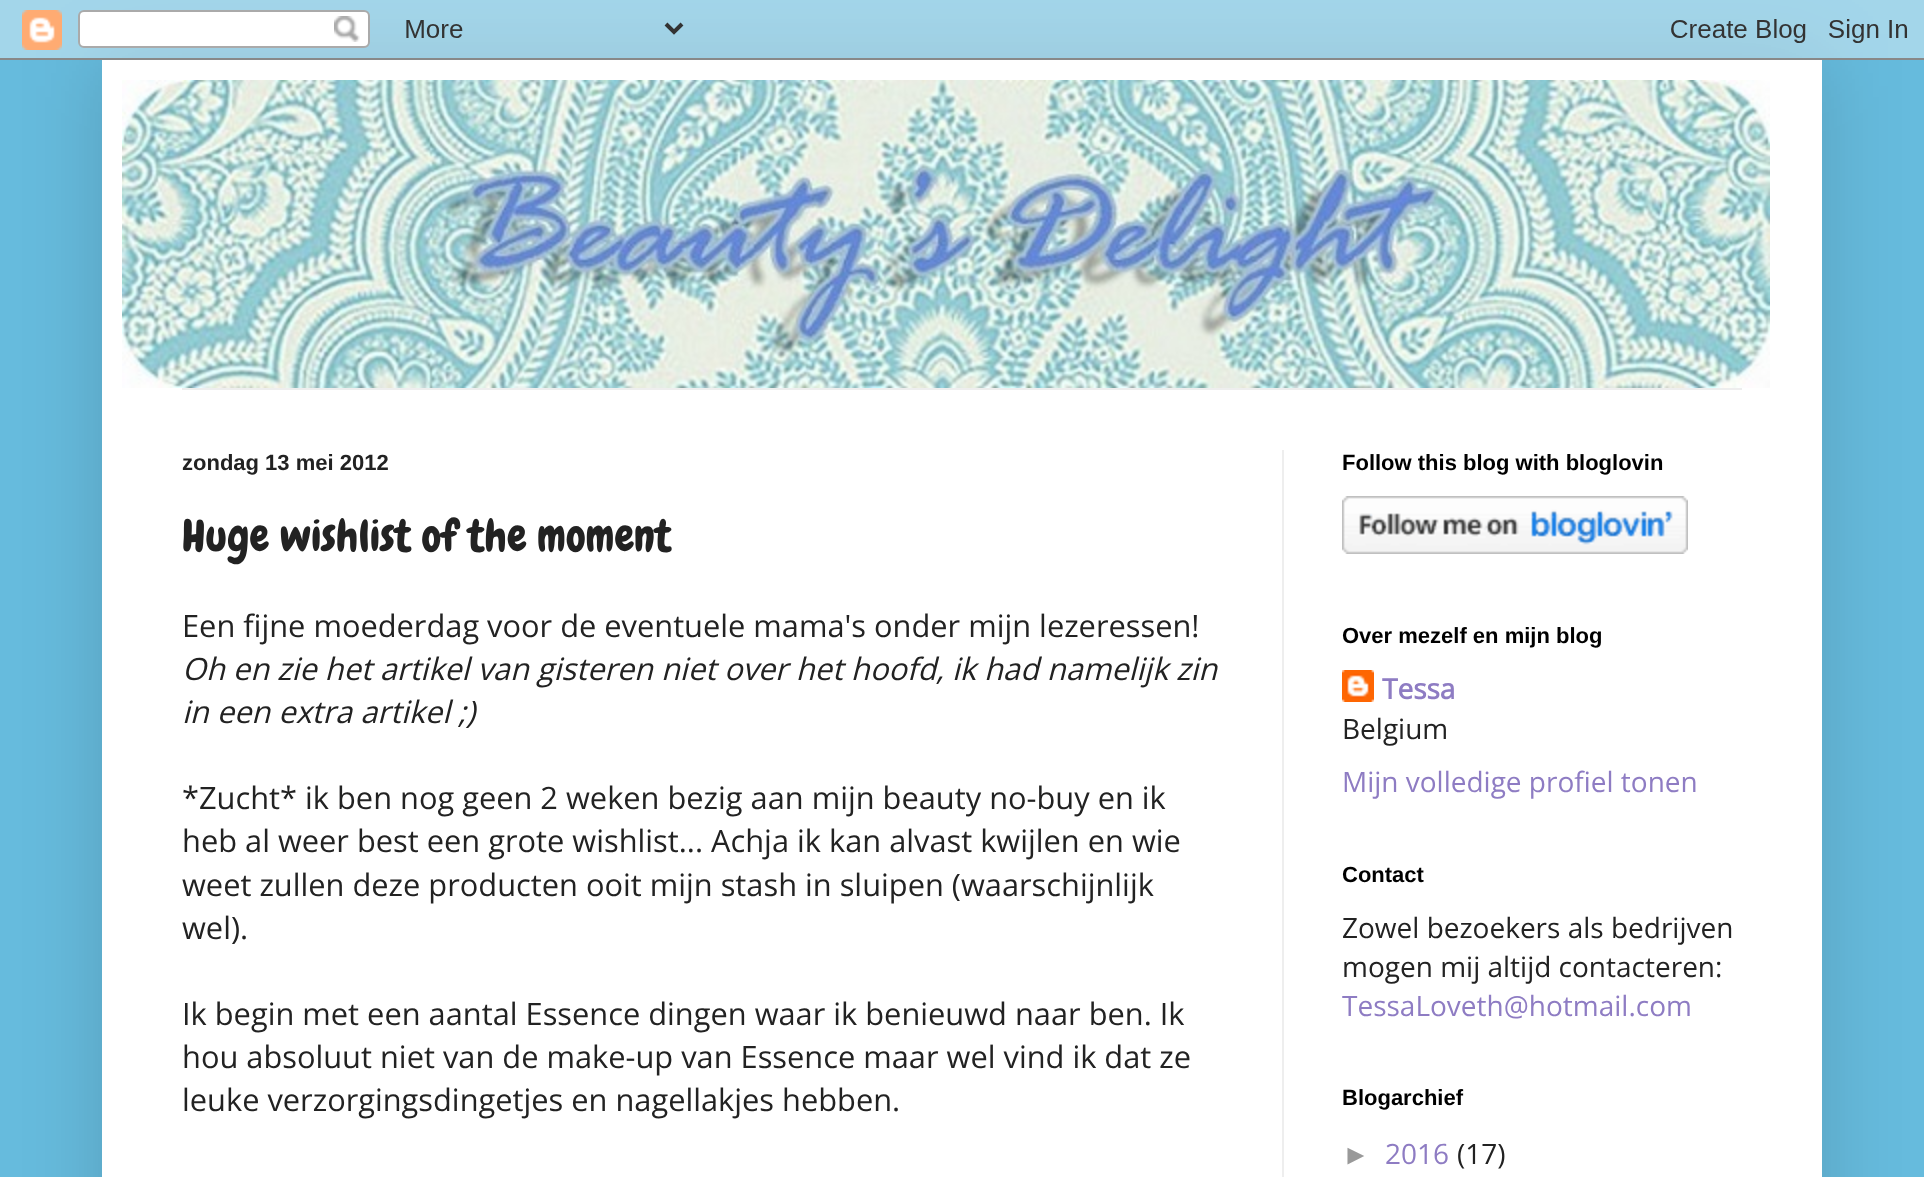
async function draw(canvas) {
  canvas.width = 1924;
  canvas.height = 1177;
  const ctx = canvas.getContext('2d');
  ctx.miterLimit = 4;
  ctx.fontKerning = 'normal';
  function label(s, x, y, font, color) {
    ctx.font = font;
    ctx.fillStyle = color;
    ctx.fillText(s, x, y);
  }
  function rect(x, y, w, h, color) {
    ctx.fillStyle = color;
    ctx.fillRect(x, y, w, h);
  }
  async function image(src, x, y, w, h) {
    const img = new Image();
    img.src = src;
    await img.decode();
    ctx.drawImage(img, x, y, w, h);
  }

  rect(0, 0, 1924, 1177, '#6bd');
  ctx.fillStyle = '#00000026';
  ctx.filter = 'blur(40px)';
  ctx.beginPath();
  ctx.rect(102, 60, 1720, 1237);
  ctx.fill();
  ctx.filter = 'none';
  await image('assets/img1.png', 0, 0, 1924, 60);
  rect(102, 60, 1720, 1117, '#fff');
  await image('assets/img2.png', 122, 80, 1648, 308);
  rect(182, 388, 1560, 2, '#eee');
  rect(1282, 450, 2, 727, '#eee');
  label('zondag 13 mei 2012', 182, 470, 'bold 22px Liberation Sans', '#222');
  label('Huge wishlist of the moment', 182, 551, '44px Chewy', '#222');
  label('Een fijne moederdag voor de eventuele mama\'s onder mijn lezeressen!', 182, 637, '30.8px Open Sans', '#222');
  label('Oh en zie het artikel van gisteren niet over het hoofd, ik had namelijk zin', 182, 680, 'italic 30.8px Open Sans', '#222');
  label('in een extra artikel ;)', 182, 723, 'italic 30.8px Open Sans', '#222');
  label('*Zucht* ik ben nog geen 2 weken bezig aan mijn beauty no-buy en ik', 182, 809, '30.8px Open Sans', '#222');
  label('heb al weer best een grote wishlist... Achja ik kan alvast kwijlen en wie', 182, 852, '30.8px Open Sans', '#222');
  label('weet zullen deze producten ooit mijn stash in sluipen (waarschijnlijk', 182, 896, '30.8px Open Sans', '#222');
  label('wel).', 182, 939, '30.8px Open Sans', '#222');
  label('Ik begin met een aantal Essence dingen waar ik benieuwd naar ben. Ik', 182, 1025, '30.8px Open Sans', '#222');
  label('hou absoluut niet van de make-up van Essence maar wel vind ik dat ze', 182, 1068, '30.8px Open Sans', '#222');
  label('leuke verzorgingsdingetjes en nagellakjes hebben.', 182, 1111, '30.8px Open Sans', '#222');
  label('Follow this blog with bloglovin', 1342, 470, 'bold 22px Liberation Sans', '#000');
  await image('assets/img3.png', 1342, 496, 346, 58);
  label('Over mezelf en mijn blog', 1342, 643, 'bold 22px Liberation Sans', '#000');
  await image('assets/img4.png', 1342, 670, 32, 32);
  label('Tessa', 1382, 699, 'bold 28px Open Sans', '#8e7cc3');
  label('Belgium', 1342, 739, '28px Open Sans', '#222');
  label('Mijn volledige profiel tonen', 1342, 792, '28px Open Sans', '#8e7cc3');
  label('Contact', 1342, 882, 'bold 22px Liberation Sans', '#000');
  label('Zowel bezoekers als bedrijven', 1342, 938, '28px Open Sans', '#222');
  label('mogen mij altijd contacteren:', 1342, 977, '28px Open Sans', '#222');
  label('TessaLoveth@hotmail.com', 1342, 1016, '28px Open Sans', '#8e7cc3');
  label('Blogarchief', 1342, 1105, 'bold 22px Liberation Sans', '#000');
  label('►', 1342, 1164, '28px Liberation Sans', '#999');
  label('2016', 1385, 1164, '28px Open Sans', '#8e7cc3');
  label('(17)', 1457, 1164, '28px Open Sans', '#222');
}

draw(document.querySelector('canvas'));
